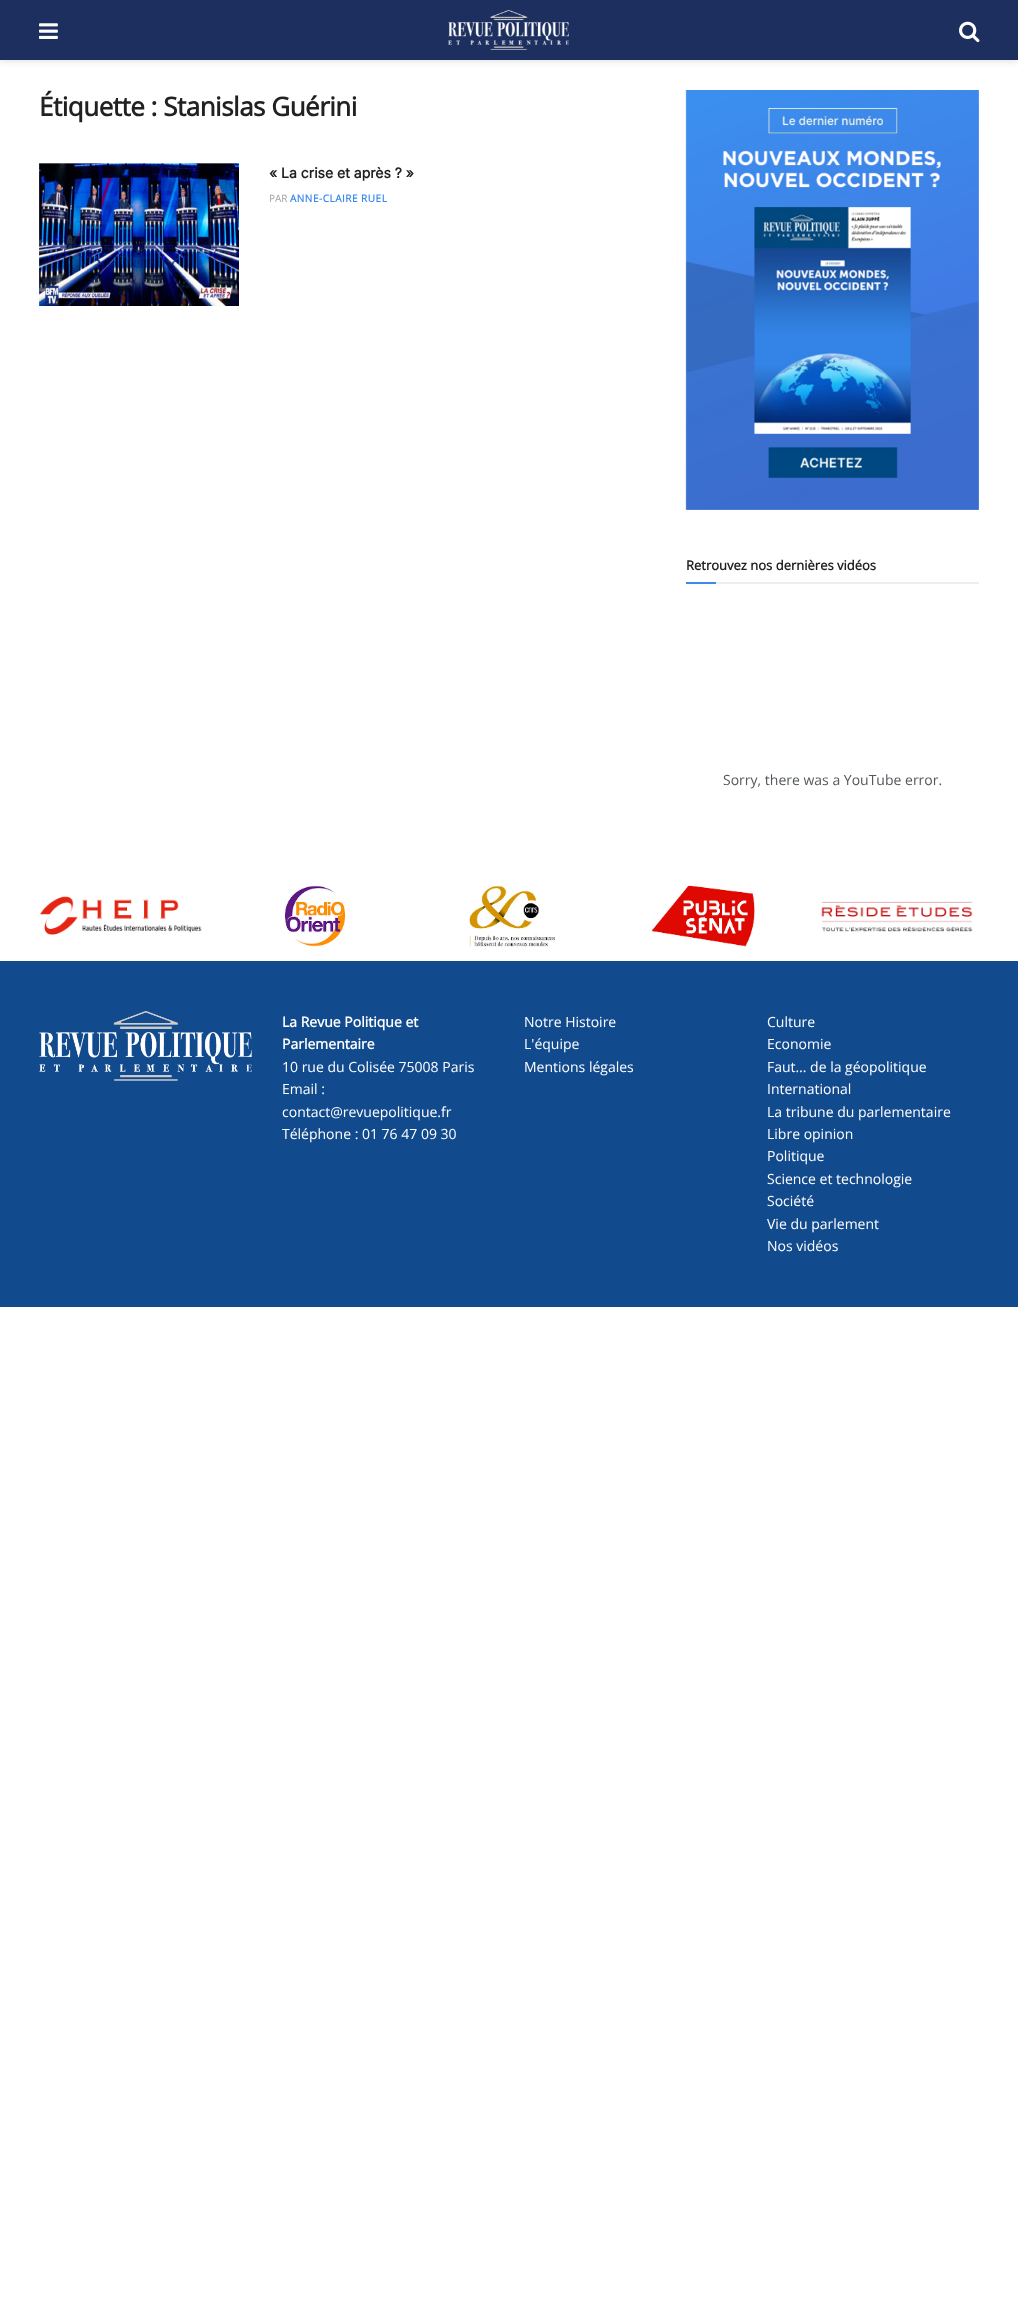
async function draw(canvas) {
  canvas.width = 1018;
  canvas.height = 2300;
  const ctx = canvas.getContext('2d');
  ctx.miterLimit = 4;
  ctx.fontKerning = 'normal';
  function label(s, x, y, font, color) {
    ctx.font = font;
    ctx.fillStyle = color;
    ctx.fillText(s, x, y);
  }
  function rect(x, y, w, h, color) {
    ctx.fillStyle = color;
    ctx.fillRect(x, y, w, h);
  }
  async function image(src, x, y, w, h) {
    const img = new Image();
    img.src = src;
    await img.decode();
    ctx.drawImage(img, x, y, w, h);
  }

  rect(0, 0, 1018, 2300, '#fff');
  ctx.fillStyle = '#0000001a';
  ctx.filter = 'blur(3px)';
  ctx.beginPath();
  ctx.rect(0, 2, 1018, 60);
  ctx.fill();
  ctx.filter = 'none';
  rect(0, 0, 1018, 60, '#1d2f5e');
  await image('assets/img1.png', 39, 23, 19, 16);
  await image('assets/img2.png', 448, 10, 121, 40);
  await image('assets/img3.png', 959, 21, 21, 22);
  ctx.letterSpacing = '-0.5px';
  label('Étiquette : Stanislas Guérini', 39, 116, 'bold 26px Open Sans', '#212121');
  await image('assets/img4.png', 39, 163, 200, 143);
  ctx.letterSpacing = '0px';
  label('« La crise et après ? »', 269, 178, 'bold 14px Inter', '#212121');
  label('PAR', 269, 202, '10px Open Sans', '#a0a0a0');
  ctx.letterSpacing = '0.5px';
  label('ANNE-CLAIRE RUEL', 290, 202, 'bold 10px Open Sans', '#3c8aec');
  await image('assets/img5.png', 685, 90, 294, 420);
  rect(716, 582, 263, 2, '#eee');
  ctx.letterSpacing = '0px';
  label('Retrouvez nos dernières vidéos', 686, 570, 'bold 13px Open Sans', '#212121');
  rect(686, 582, 30, 2, '#3c8aec');
  label('Sorry, there was a YouTube error.', 723, 785, '14px Open Sans', '#53585c');
  await image('assets/img6.png', 40, 896, 162, 39);
  await image('assets/img7.png', 284, 885, 62, 62);
  await image('assets/img8.png', 469, 885, 87, 62);
  await image('assets/img9.png', 649, 885, 107, 62);
  await image('assets/img10.png', 821, 901, 152, 31);
  rect(0, 961, 1018, 346, '#124a8e');
  await image('assets/img11.png', 39, 1011, 213, 70);
  label('La Revue Politique et', 282, 1027, 'bold 14px Open Sans', '#fff');
  label('Parlementaire', 282, 1049, 'bold 14px Open Sans', '#fff');
  label('10 rue du Colisée 75008 Paris', 282, 1072, '14px Open Sans', '#fff');
  label('Email :', 282, 1094, '14px Open Sans', '#fff');
  label('contact@revuepolitique.fr', 282, 1117, '14px Open Sans', '#fff');
  label('Téléphone : 01 76 47 09 30', 282, 1139, '14px Open Sans', '#fff');
  label('Notre Histoire', 524, 1027, '14px Open Sans', '#fff');
  label('L\'équipe', 524, 1049, '14px Open Sans', '#fff');
  label('Mentions légales', 524, 1072, '14px Open Sans', '#fff');
  label('Culture', 767, 1027, '14px Open Sans', '#fff');
  label('Economie', 767, 1049, '14px Open Sans', '#fff');
  label('Faut… de la géopolitique', 767, 1072, '14px Open Sans', '#fff');
  label('International', 767, 1094, '14px Open Sans', '#fff');
  label('La tribune du parlementaire', 767, 1117, '14px Open Sans', '#fff');
  label('Libre opinion', 767, 1139, '14px Open Sans', '#fff');
  label('Politique', 767, 1161, '14px Open Sans', '#fff');
  label('Science et technologie', 767, 1184, '14px Open Sans', '#fff');
  label('Société', 767, 1206, '14px Open Sans', '#fff');
  label('Vie du parlement', 767, 1229, '14px Open Sans', '#fff');
  label('Nos vidéos', 767, 1251, '14px Open Sans', '#fff');
}

draw(document.querySelector('canvas'));
